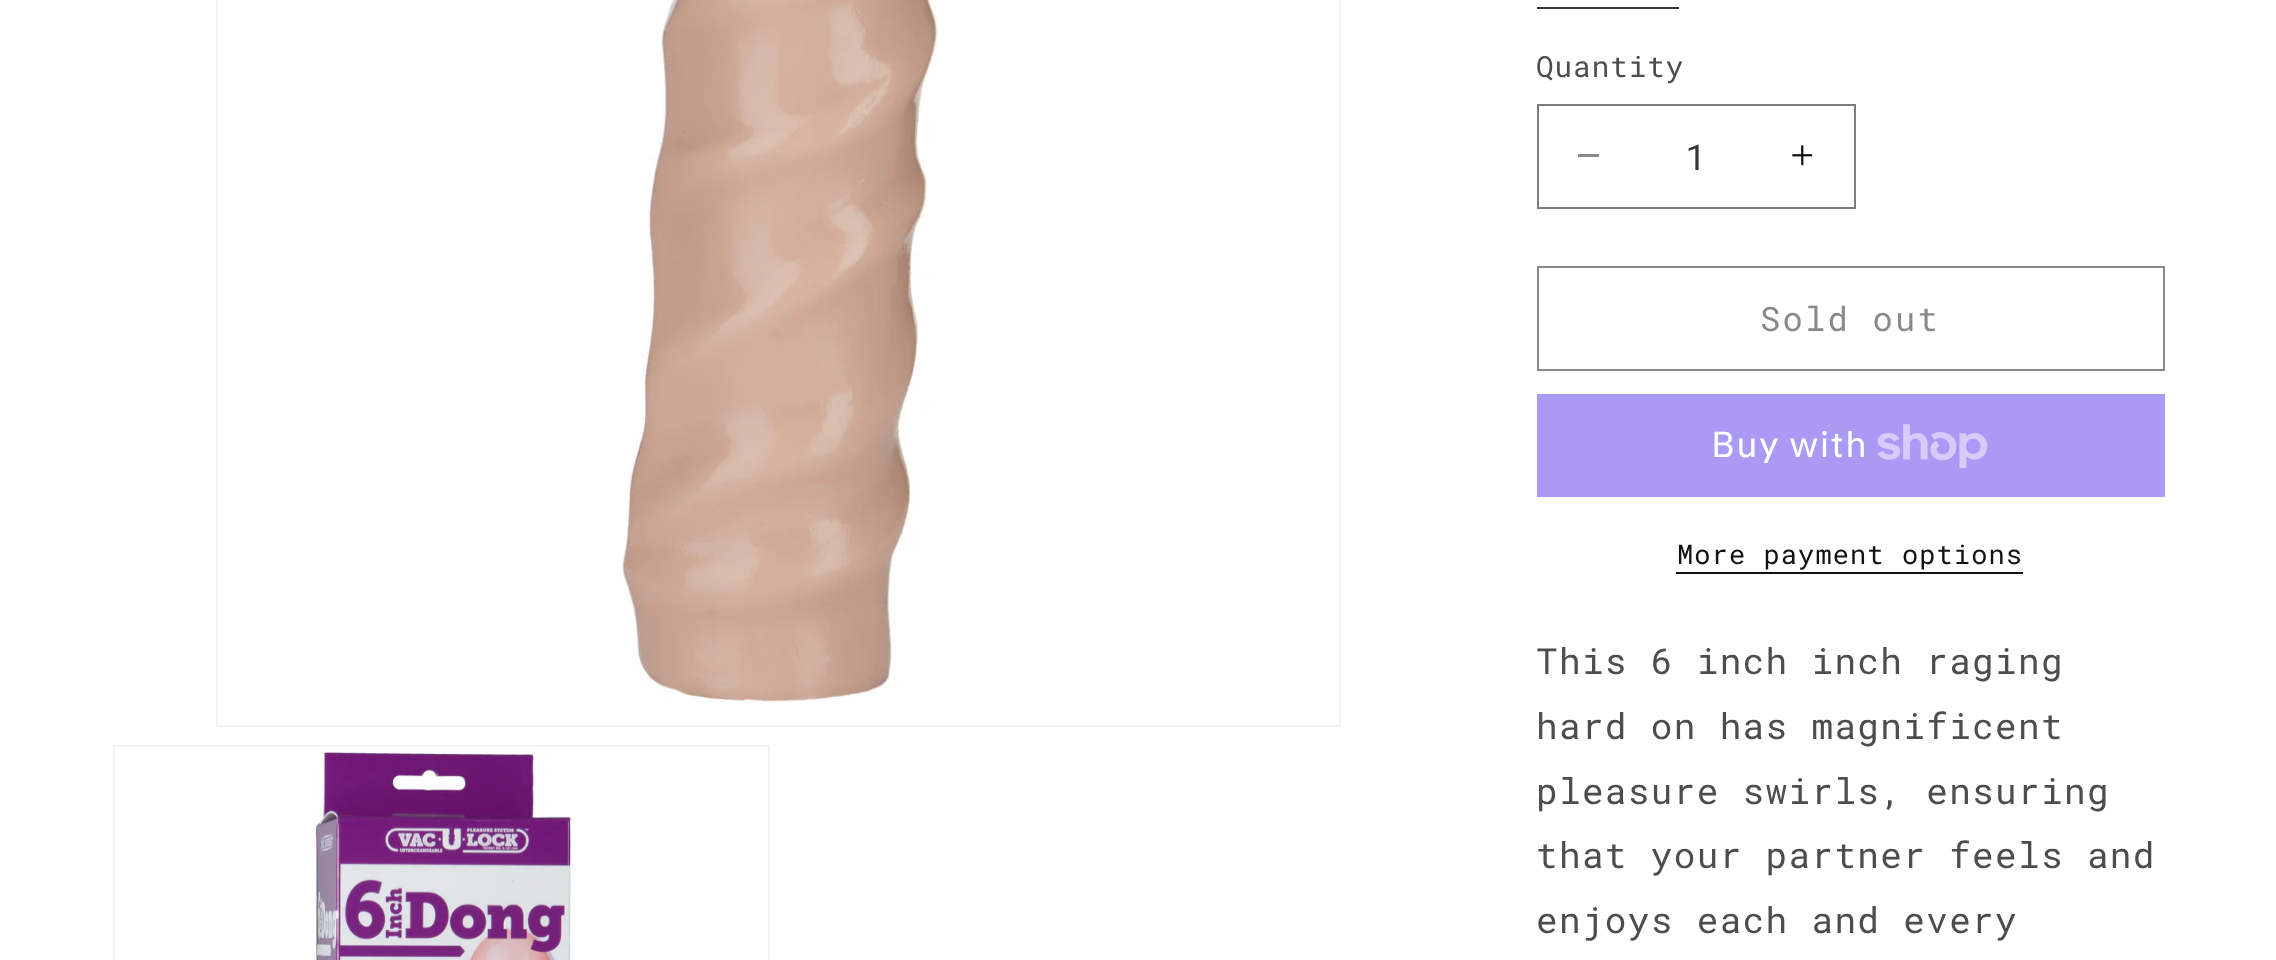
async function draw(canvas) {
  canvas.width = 2276;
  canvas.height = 960;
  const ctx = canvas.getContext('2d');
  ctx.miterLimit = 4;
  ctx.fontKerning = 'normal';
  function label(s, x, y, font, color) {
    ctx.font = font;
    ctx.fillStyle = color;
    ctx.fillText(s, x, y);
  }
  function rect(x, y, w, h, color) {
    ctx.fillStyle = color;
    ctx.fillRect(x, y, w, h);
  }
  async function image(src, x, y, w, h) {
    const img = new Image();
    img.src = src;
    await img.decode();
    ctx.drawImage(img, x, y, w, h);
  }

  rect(0, 0, 2276, 960, '#fff');
  ctx.strokeStyle = '#f3f3f3';
  ctx.lineWidth = 2;
  ctx.strokeRect(217, -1, 1123, 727);
  await image('assets/img1.png', 622, 0, 316, 703);
  ctx.strokeRect(114, 746, 655, 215);
  await image('assets/img2.png', 313, 750, 259, 210);
  rect(1537, 7, 142, 2, '#363636');
  ctx.letterSpacing = '1px';
  label('Quantity', 1536, 77, '29.25px Roboto Mono', '#4d4d4d');
  rect(1578, 154, 21, 3, '#898989');
  await image('assets/img3.png', 1792, 145, 21, 21);
  ctx.strokeStyle = '#7d7d7d';
  ctx.strokeRect(1538, 105, 317, 103);
  ctx.letterSpacing = '0px';
  label('1', 1685, 170, '36px Roboto Mono', '#363636');
  ctx.strokeStyle = '#898989';
  ctx.strokeRect(1538, 267, 626, 103);
  ctx.letterSpacing = '2.25px';
  label('Sold out', 1760, 331, '33.75px Roboto Mono', '#898989');
  rect(1537, 394, 628, 103, '#aa99f5');
  ctx.letterSpacing = '1.35px';
  label('Buy with', 1711, 457, '36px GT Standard', '#fff');
  await image('assets/img4.png', 1877, 424, 111, 44);
  ctx.letterSpacing = '1.1px';
  label('More payment options', 1677, 564, '27px Roboto Mono', '#121212');
  rect(1676, 572, 347, 2, '#121212');
  ctx.letterSpacing = '1.35px';
  label('This 6 inch inch raging', 1536, 674, '36px Roboto Mono', '#4d4d4d');
  label('hard on has magnificent', 1536, 739, '36px Roboto Mono', '#4d4d4d');
  label('pleasure swirls, ensuring', 1536, 804, '36px Roboto Mono', '#4d4d4d');
  label('that your partner feels and', 1536, 868, '36px Roboto Mono', '#4d4d4d');
  label('enjoys each and every', 1536, 933, '36px Roboto Mono', '#4d4d4d');
}

draw(document.querySelector('canvas'));
